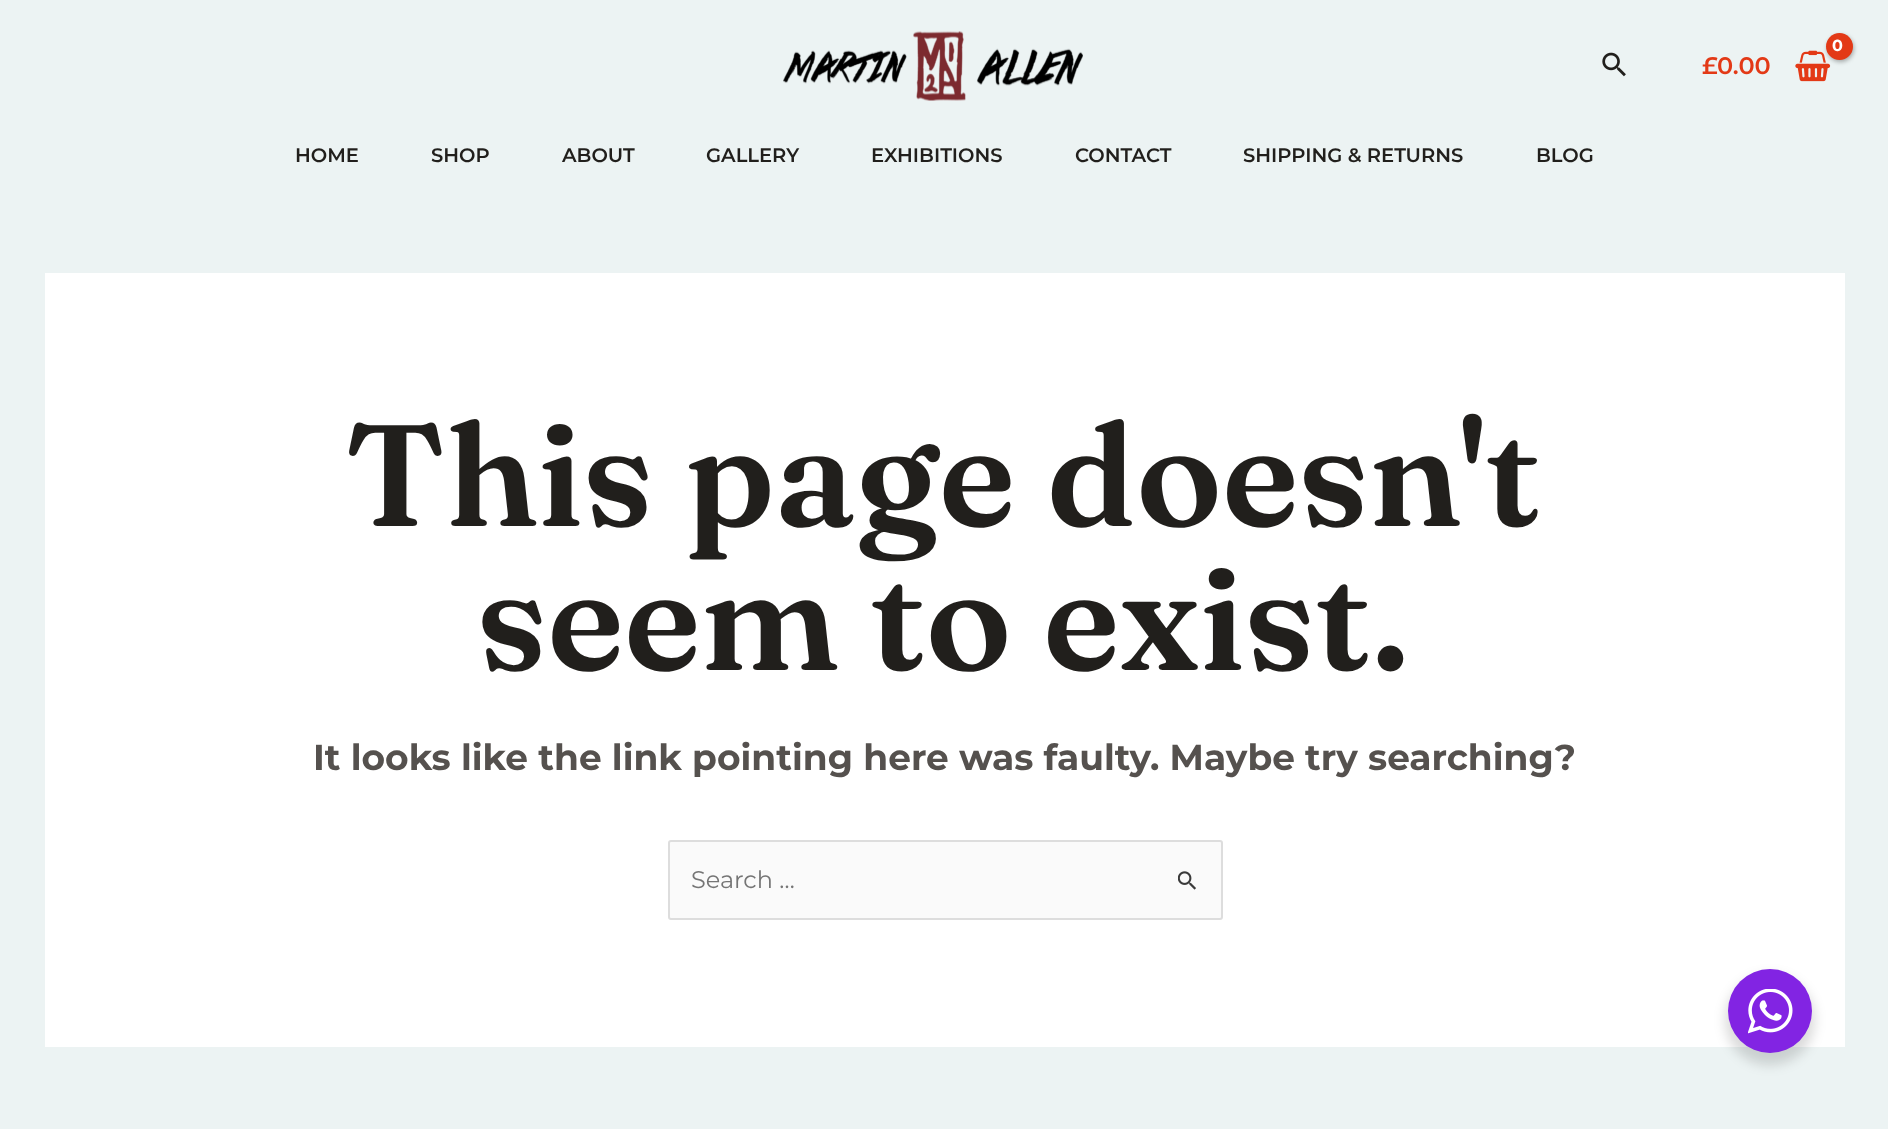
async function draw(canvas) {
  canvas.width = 1888;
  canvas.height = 1129;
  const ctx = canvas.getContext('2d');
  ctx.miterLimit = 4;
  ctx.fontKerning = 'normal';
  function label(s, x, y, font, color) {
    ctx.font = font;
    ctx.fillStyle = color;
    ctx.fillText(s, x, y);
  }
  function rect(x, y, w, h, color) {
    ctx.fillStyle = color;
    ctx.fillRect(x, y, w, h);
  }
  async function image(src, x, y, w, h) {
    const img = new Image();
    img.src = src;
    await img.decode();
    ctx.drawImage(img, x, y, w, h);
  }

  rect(0, 0, 1888, 1129, '#ecf3f3');
  await image('assets/img1.png', 783, 31, 300, 70);
  await image('assets/img2.png', 1602, 52, 24, 25);
  await image('assets/img3.png', 1795, 50, 36, 32);
  ctx.fillStyle = '#0000004d';
  ctx.filter = 'blur(2px)';
  ctx.beginPath();
  ctx.roundRect(1827, 35, 27, 27, 13.5);
  ctx.fill();
  ctx.filter = 'none';
  ctx.fillStyle = '#e33916';
  ctx.beginPath();
  ctx.arc(1839.5, 46.5, 13.5, 0, 2 * Math.PI);
  ctx.fill();
  ctx.letterSpacing = '-1px';
  label('0', 1832, 51, 'bold 16px Montserrat', '#fff');
  ctx.letterSpacing = '0px';
  label('£', 1702, 74, '600 24px Montserrat', '#e33916');
  label('0.00', 1717, 74, '600 24px Montserrat', '#e33916');
  label('HOME', 295, 162, '600 19.5px Montserrat', '#211f1c');
  label('SHOP', 431, 162, '600 19.5px Montserrat', '#211f1c');
  label('ABOUT', 562, 162, '600 19.5px Montserrat', '#211f1c');
  label('GALLERY', 706, 162, '600 19.5px Montserrat', '#211f1c');
  label('EXHIBITIONS', 871, 162, '600 19.5px Montserrat', '#211f1c');
  label('CONTACT', 1075, 162, '600 19.5px Montserrat', '#211f1c');
  label('SHIPPING & RETURNS', 1243, 162, '600 19.5px Montserrat', '#211f1c');
  label('BLOG', 1536, 162, '600 19.5px Montserrat', '#211f1c');
  rect(45, 273, 1800, 774, '#fff');
  label('This page doesn\'t', 345, 526, '600 144px Fraunces', '#211f1c');
  label('seem to exist.', 477, 670, '600 144px Fraunces', '#211f1c');
  label('It looks like the link pointing here was faulty. Maybe try searching?', 313, 770, 'bold 36px Montserrat', '#55514e');
  ctx.fillStyle = '#fafafa';
  ctx.beginPath();
  ctx.roundRect(669, 841, 553, 78, 2);
  ctx.fill();
  ctx.strokeStyle = '#ddd';
  ctx.lineWidth = 2;
  ctx.stroke();
  label('Search …', 691, 888, '24px Montserrat', '#757575');
  await image('assets/img4.png', 1178, 871, 18, 19);
  ctx.fillStyle = '#00000024';
  ctx.filter = 'blur(6px)';
  ctx.beginPath();
  ctx.roundRect(1725, 975, 90, 90, 45);
  ctx.fill();
  ctx.filter = 'none';
  ctx.fillStyle = '#8224e3';
  ctx.beginPath();
  ctx.arc(1770, 1011, 42, 0, 2 * Math.PI);
  ctx.fill();
  await image('assets/img5.png', 1748, 989, 45, 45);
}

draw(document.querySelector('canvas'));
